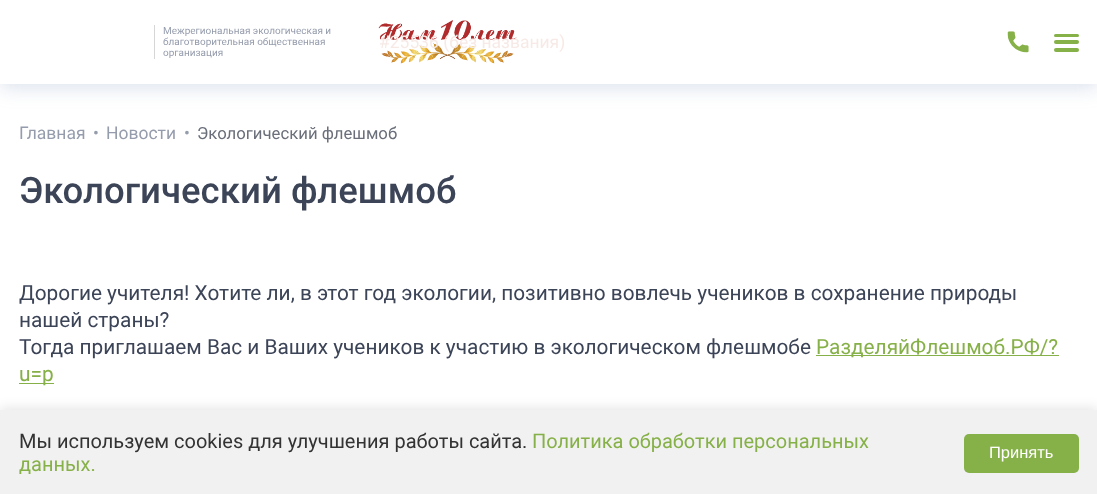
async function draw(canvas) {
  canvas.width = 1097;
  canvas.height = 494;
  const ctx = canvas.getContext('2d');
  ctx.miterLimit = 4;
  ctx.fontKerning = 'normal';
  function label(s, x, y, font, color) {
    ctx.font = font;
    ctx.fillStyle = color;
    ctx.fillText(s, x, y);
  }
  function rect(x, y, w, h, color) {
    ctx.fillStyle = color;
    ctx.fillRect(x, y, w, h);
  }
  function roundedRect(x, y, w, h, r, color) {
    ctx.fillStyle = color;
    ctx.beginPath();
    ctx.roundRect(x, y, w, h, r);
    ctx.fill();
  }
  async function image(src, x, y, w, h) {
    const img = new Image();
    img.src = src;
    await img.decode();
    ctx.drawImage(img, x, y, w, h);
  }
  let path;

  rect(0, 0, 1097, 494, '#fff');
  ctx.save();
  path = new Path2D('M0 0H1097V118H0ZM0 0H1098V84H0Z');
  ctx.clip(path, 'evenodd');
  ctx.fillStyle = '#6f8cb640';
  ctx.filter = 'blur(9.5px)';
  ctx.beginPath();
  ctx.rect(0, 4, 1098, 84);
  ctx.fill();
  ctx.filter = 'none';
  ctx.restore();
  rect(154, 25, 1, 34, '#d6d6d6');
  label('Межрегиональная экологическая и', 163, 34, '10px Roboto', '#959cac');
  label('благотворительная общественная', 163, 45, '10px Roboto', '#959cac');
  label('организация', 163, 56, '10px Roboto', '#959cac');
  await image('assets/img1.png', 378, 20, 139, 44);
  label('#25536 (без названия)', 379, 48, '17.5px Roboto', '#f7eae6');
  await image('assets/img2.png', 1007, 31, 22, 22);
  roundedRect(1054, 40, 25, 4, 2, '#86b048');
  roundedRect(1054, 34, 25, 3, 1.5, '#86b048');
  roundedRect(1054, 48, 25, 4, 2, '#86b048');
  label('Главная', 19, 139, '17.5px Roboto', '#959cac');
  label('•', 93, 139, '17.5px Roboto', '#959cac');
  label('Новости', 106, 139, '17.5px Roboto', '#959cac');
  label('•', 184, 139, '17.5px Roboto', '#959cac');
  label('Экологический флешмоб', 197, 139, '16.75px Roboto', '#6a6f7a');
  label('Экологический флешмоб', 19, 203, '500 36.5px Roboto', '#3c4457');
  label('Дорогие учителя! Хотите ли, в этот год экологии, позитивно вовлечь учеников в сохранение природы', 19, 300, '20.85px Roboto', '#3c4457');
  label('нашей страны?', 19, 327, '20.85px Roboto', '#3c4457');
  label('Тогда приглашаем Вас и Ваших учеников к участию в экологическом флешмобе', 19, 354, '20.85px Roboto', '#3c4457');
  rect(816, 355, 243, 1, '#86b048');
  label('РазделяйФлешмоб.РФ/?', 816, 354, '20.85px Roboto', '#86b048');
  rect(19, 383, 35, 1, '#86b048');
  label('u=p', 19, 381, '20.85px Roboto', '#86b048');
  ctx.fillStyle = '#0000001a';
  ctx.filter = 'blur(6px)';
  ctx.beginPath();
  ctx.rect(0, 408, 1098, 85);
  ctx.fill();
  ctx.filter = 'none';
  rect(0, 410, 1097, 84, '#f1f1f1');
  label('Мы используем cookies для улучшения работы сайта.', 19, 448, '20px Roboto', '#333');
  label('Политика обработки персональных', 532, 448, '20px Roboto', '#86b048');
  label('данных.', 19, 471, '20px Roboto', '#86b048');
  roundedRect(964, 434, 115, 39, 5, '#86b048');
  label('Принять', 989, 458, '16.5px Liberation Sans', '#fff');
}

draw(document.querySelector('canvas'));
